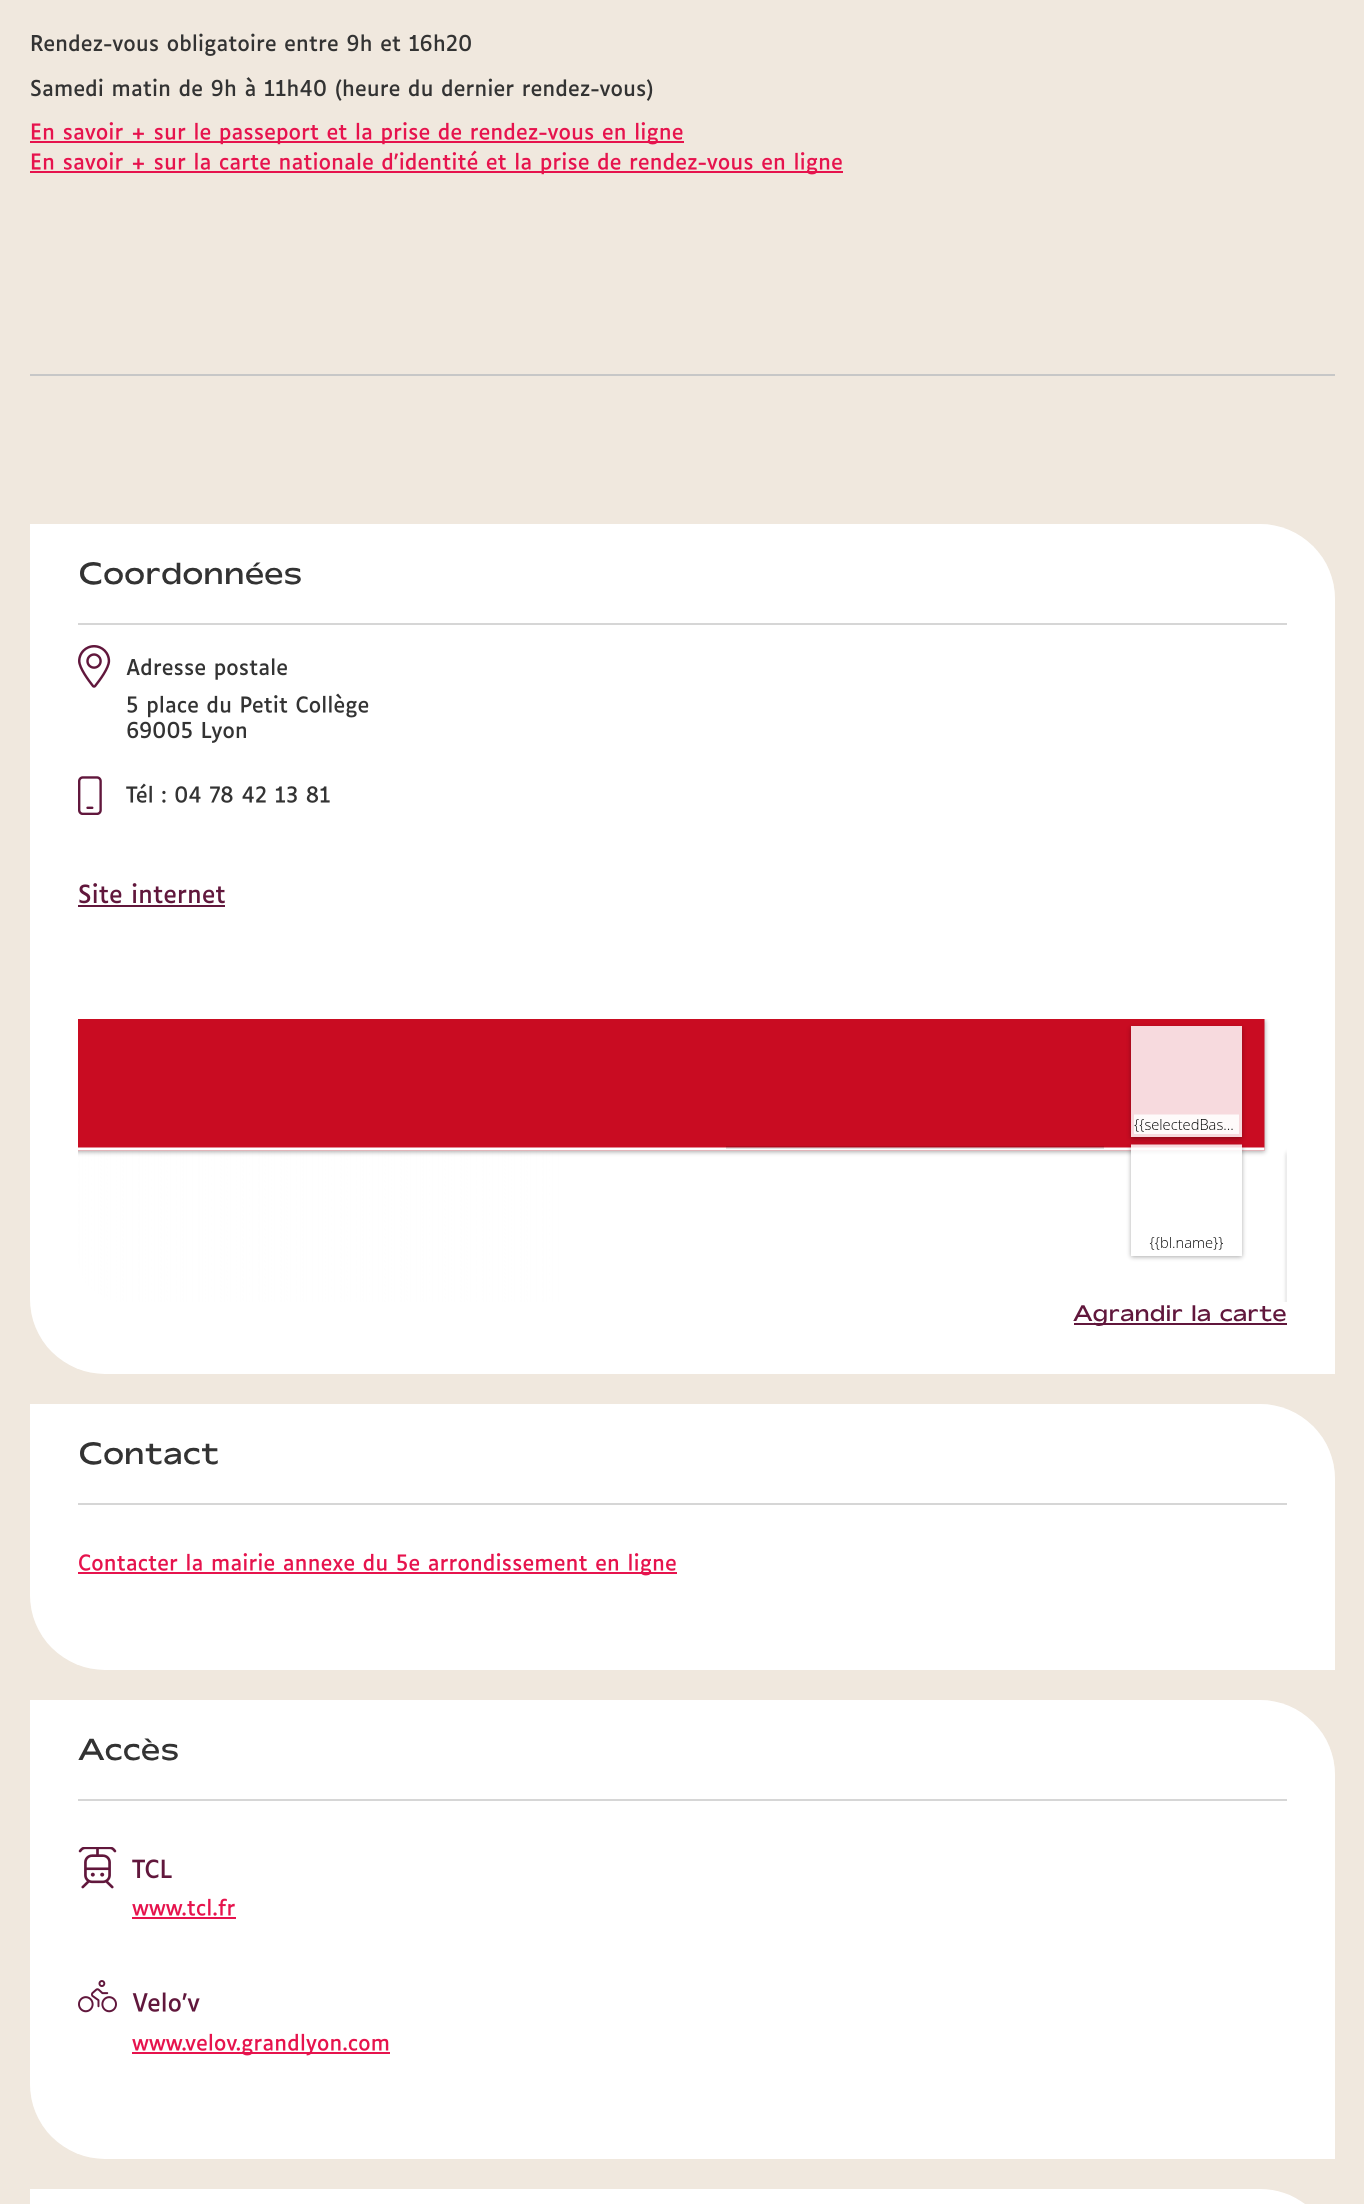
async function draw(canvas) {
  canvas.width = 1364;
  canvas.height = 2204;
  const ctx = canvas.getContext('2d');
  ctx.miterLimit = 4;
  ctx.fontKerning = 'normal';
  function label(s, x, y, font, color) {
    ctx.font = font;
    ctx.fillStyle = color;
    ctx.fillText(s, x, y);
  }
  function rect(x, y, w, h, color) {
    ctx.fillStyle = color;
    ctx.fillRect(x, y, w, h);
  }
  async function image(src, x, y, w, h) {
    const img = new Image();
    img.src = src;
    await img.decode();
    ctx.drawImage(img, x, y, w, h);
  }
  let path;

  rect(0, 0, 1364, 2204, '#f0e8de');
  await image('assets/img1.png', 31, 33, 440, 23);
  await image('assets/img2.png', 31, 77, 622, 24);
  rect(30, 141, 654, 2, '#e6134d');
  await image('assets/img3.png', 31, 122, 652, 23);
  rect(30, 171, 813, 2, '#e6134d');
  await image('assets/img4.png', 31, 150, 811, 25);
  rect(30, 374, 1305, 2, '#c7c7c7');
  ctx.fillStyle = '#fff';
  ctx.beginPath();
  ctx.roundRect(30, 524, 1305, 99, [0, 75, 0, 0]);
  ctx.fill();
  label('Coordonnées', 78, 584, '28.5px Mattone', '#333');
  ctx.fillStyle = '#fff';
  ctx.beginPath();
  ctx.roundRect(30, 623, 1305, 751, [0, 0, 0, 75]);
  ctx.fill();
  rect(78, 623, 1209, 2, '#d6d6d6');
  await image('assets/img5.png', 78, 645, 33, 43);
  await image('assets/img6.png', 126, 658, 161, 22);
  await image('assets/img7.png', 127, 693, 242, 25);
  await image('assets/img8.png', 127, 721, 119, 22);
  await image('assets/img9.png', 78, 776, 24, 39);
  await image('assets/img10.png', 126, 783, 40, 20);
  await image('assets/img11.png', 175, 786, 155, 17);
  await image('assets/img12.png', 79, 883, 146, 21);
  rect(78, 905, 147, 2, '#61173c');
  await image('assets/img13.png', 78, 1019, 1209, 283);
  rect(1074, 1323, 213, 2, '#61173c');
  label('Agrandir la carte', 1073, 1321, '21px Mattone', '#61173c');
  ctx.fillStyle = '#fff';
  ctx.beginPath();
  ctx.roundRect(30, 1404, 1305, 99, [0, 75, 0, 0]);
  ctx.fill();
  label('Contact', 78, 1464, '28.5px Mattone', '#333');
  ctx.fillStyle = '#fff';
  ctx.beginPath();
  ctx.roundRect(30, 1503, 1305, 167, [0, 0, 0, 75]);
  ctx.fill();
  rect(78, 1503, 1209, 2, '#d6d6d6');
  rect(78, 1572, 599, 2, '#e6134d');
  await image('assets/img14.png', 79, 1553, 597, 23);
  ctx.fillStyle = '#fff';
  ctx.beginPath();
  ctx.roundRect(30, 1700, 1305, 99, [0, 75, 0, 0]);
  ctx.fill();
  label('Accès', 78, 1760, '28.5px Mattone', '#333');
  ctx.fillStyle = '#fff';
  ctx.beginPath();
  ctx.roundRect(30, 1799, 1305, 360, [0, 0, 0, 75]);
  ctx.fill();
  rect(78, 1799, 1209, 2, '#d6d6d6');
  await image('assets/img15.png', 78, 1847, 39, 42);
  await image('assets/img16.png', 132, 1859, 40, 20);
  await image('assets/img17.png', 132, 1898, 103, 18);
  rect(132, 1917, 104, 2, '#e6134d');
  await image('assets/img18.png', 78, 1980, 39, 33);
  await image('assets/img19.png', 132, 1992, 68, 20);
  rect(132, 2052, 258, 2, '#e6134d');
  await image('assets/img20.png', 132, 2033, 257, 23);
  ctx.fillStyle = '#fff';
  path = new Path2D('M30 2189H1260C1301.5 2189 1335 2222.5 1335 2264V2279H30Z');
  ctx.fill(path);
}

draw(document.querySelector('canvas'));
